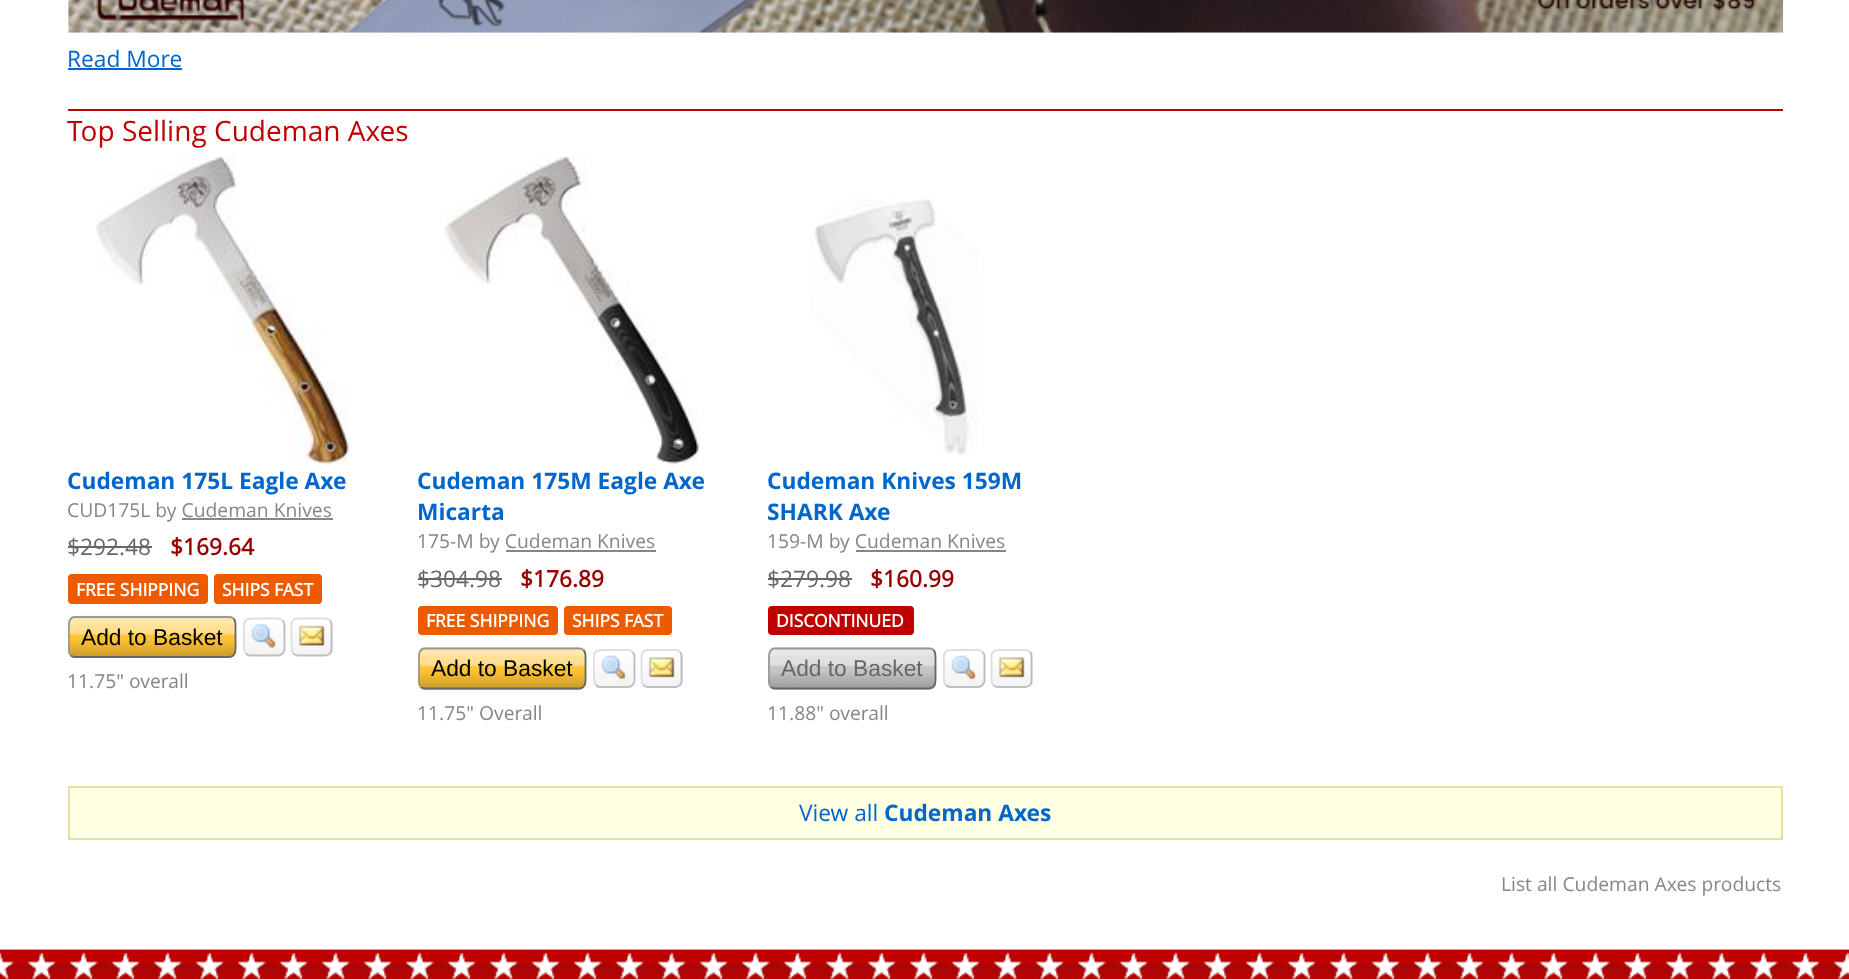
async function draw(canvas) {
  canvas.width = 1849;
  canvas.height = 979;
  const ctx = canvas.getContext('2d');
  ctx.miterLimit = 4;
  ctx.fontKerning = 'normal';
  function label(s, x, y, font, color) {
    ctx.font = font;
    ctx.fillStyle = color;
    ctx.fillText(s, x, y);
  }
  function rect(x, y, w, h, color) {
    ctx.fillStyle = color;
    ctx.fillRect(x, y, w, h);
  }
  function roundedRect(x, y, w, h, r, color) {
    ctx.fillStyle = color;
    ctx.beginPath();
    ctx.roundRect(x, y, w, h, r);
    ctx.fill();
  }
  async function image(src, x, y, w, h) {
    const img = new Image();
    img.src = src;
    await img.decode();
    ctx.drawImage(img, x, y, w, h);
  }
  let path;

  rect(0, 0, 1849, 979, '#fff');
  await image('assets/img1.png', 68, 0, 1716, 33);
  label('Read More', 67, 67, '22.75px Open Sans', '#06c');
  rect(68, 68, 114, 2, '#06c');
  rect(68, 109, 1715, 2, '#c00000');
  label('Top Selling Cudeman Axes', 67, 141, '28px Open Sans', '#c00000');
  await image('assets/img2.png', 96, 157, 254, 307);
  label('Cudeman 175L Eagle Axe', 67, 489, 'bold 22.75px Open Sans', '#06c');
  label('CUD175L by Cudeman Knives', 67, 517, '19.3px Open Sans', '#868686');
  rect(182, 518, 151, 2, '#868686');
  label('$292.48', 67, 555, '22.75px Open Sans', '#676767');
  rect(68, 546, 84, 2, '#676767');
  label('$169.64', 170, 555, 'bold 22.75px "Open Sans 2"', '#900');
  roundedRect(68, 574, 140, 30, 4, '#ed5a00');
  label('FREE SHIPPING', 76, 596, 'bold 17.5px "Open Sans 2"', '#fff');
  roundedRect(214, 574, 108, 30, 4, '#ed5a00');
  label('SHIPS FAST', 222, 596, 'bold 17.5px "Open Sans 2"', '#fff');
  roundedRect(68, 616, 168, 42, 7, '#ffc231');
  await image('assets/img3.png', 68, 615, 169, 43);
  path = new Path2D('M233.5 618.5C236 621 235.5 624.5 235.5 627.5V641.5C235.5 646.5 237 657 229 657H75C73.5 657 72 656.5 71 655.5');
  ctx.strokeStyle = '#676767';
  ctx.lineWidth = 1.8;
  ctx.stroke(path);
  path = new Path2D('M71 655.5C68.5 653 69 649.5 69 646.5V632.5C69 627.5 67.5 617 75 617H229C231 617 232.5 617.5 233.5 618.5');
  ctx.strokeStyle = '#999';
  ctx.stroke(path);
  label('Add to Basket', 81, 645, '22.75px Liberation Sans', '#000');
  await image('assets/img4.png', 243, 619, 42, 36);
  path = new Path2D('M282.5 620.5C283.5 621.5 284.5 623 284.5 625V649C284.5 651 283.5 652.5 282.5 653.5');
  ctx.strokeStyle = '#bbb';
  ctx.stroke(path);
  path = new Path2D('M282.5 653.5C281.5 654.5 280 655.5 278 655.5H250C248.5 655.5 247 654.5 246 653.5');
  ctx.strokeStyle = '#bfbfbf';
  ctx.stroke(path);
  path = new Path2D('M246 653.5C243.5 651.5 244 648 244 645V623.5C245.5 618 250.5 618.5 255 618.5H273.5C276.5 618.5 280 618 282.5 620.5');
  ctx.strokeStyle = '#dedede';
  ctx.stroke(path);
  await image('assets/img5.png', 251, 623, 25, 26);
  roundedRect(291, 618, 42, 38, 7, '#ededed');
  await image('assets/img6.png', 291, 619, 42, 36);
  path = new Path2D('M330 620.5C331 621.5 331.5 623 331.5 625V649C331.5 651 331 652.5 330 653.5');
  ctx.strokeStyle = '#bbb';
  ctx.stroke(path);
  path = new Path2D('M330 653.5C328.5 654.5 327 655.5 325.5 655.5H297.5C296 655.5 294.5 654.5 293 653.5');
  ctx.strokeStyle = '#bfbfbf';
  ctx.stroke(path);
  path = new Path2D('M293 653.5C291 651.5 291.5 648 291.5 645V623.5C292.5 618 298 618.5 302 618.5H321C324 618.5 327.5 618 330 620.5');
  ctx.strokeStyle = '#dedede';
  ctx.stroke(path);
  await image('assets/img7.png', 298, 625, 27, 21);
  label('11.75" overall', 67, 688, '19.3px Open Sans', '#868686');
  await image('assets/img8.png', 444, 157, 255, 307);
  label('Cudeman 175M Eagle Axe', 417, 489, 'bold 22.75px Open Sans', '#06c');
  label('Micarta', 417, 520, 'bold 22.75px Open Sans', '#06c');
  label('175-M by Cudeman Knives', 417, 548, '19.3px Open Sans', '#868686');
  rect(506, 550, 150, 2, '#868686');
  label('$304.98', 417, 587, '22.75px Open Sans', '#676767');
  rect(418, 578, 84, 2, '#676767');
  label('$176.89', 520, 587, 'bold 22.75px "Open Sans 2"', '#900');
  roundedRect(418, 606, 140, 29, 4, '#ed5a00');
  label('FREE SHIPPING', 426, 627, 'bold 17.5px "Open Sans 2"', '#fff');
  roundedRect(564, 606, 108, 29, 4, '#ed5a00');
  label('SHIPS FAST', 572, 627, 'bold 17.5px "Open Sans 2"', '#fff');
  roundedRect(418, 648, 168, 42, 7, '#ffc231');
  await image('assets/img9.png', 418, 647, 169, 42);
  path = new Path2D('M583.5 650C586 652.5 585.5 656 585.5 659V673C585.5 678 587 688.5 579 688.5H425C423.5 688.5 422 688 421 687');
  ctx.strokeStyle = '#676767';
  ctx.stroke(path);
  path = new Path2D('M421 687C418.5 684.5 419 681 419 678V664C419 659 417.5 648.5 425 648.5H579C581 648.5 582.5 649 583.5 650');
  ctx.strokeStyle = '#999';
  ctx.stroke(path);
  label('Add to Basket', 431, 676, '22.75px Liberation Sans', '#000');
  roundedRect(593, 649, 42, 39, 7, '#ededed');
  await image('assets/img10.png', 593, 650, 42, 37);
  path = new Path2D('M632.5 652C633.5 653 634.5 654.5 634.5 656V681C634.5 682.5 633.5 684 632.5 685');
  ctx.strokeStyle = '#bbb';
  ctx.stroke(path);
  path = new Path2D('M632.5 685C631.5 686 630 687 628 687H600C598.5 687 597 686 596 685');
  ctx.strokeStyle = '#bfbfbf';
  ctx.stroke(path);
  path = new Path2D('M596 685C593.5 683 594 679.5 594 676.5V655C595.5 649.5 600.5 650 605 650H623.5C626.5 650 630 649.5 632.5 652');
  ctx.strokeStyle = '#dedede';
  ctx.stroke(path);
  await image('assets/img11.png', 601, 655, 25, 26);
  roundedRect(641, 649, 42, 39, 7, '#ededed');
  await image('assets/img12.png', 641, 650, 42, 37);
  path = new Path2D('M680 652C681 653 681.5 654.5 681.5 656V681C681.5 682.5 681 684 680 685');
  ctx.strokeStyle = '#bbb';
  ctx.stroke(path);
  path = new Path2D('M680 685C678.5 686 677 687 675.5 687H647.5C646 687 644.5 686 643 685');
  ctx.strokeStyle = '#bfbfbf';
  ctx.stroke(path);
  path = new Path2D('M643 685C641 683 641.5 679.5 641.5 676.5V655C642.5 649.5 648 650 652 650H671C674 650 677.5 649.5 680 652');
  ctx.strokeStyle = '#dedede';
  ctx.stroke(path);
  await image('assets/img13.png', 648, 657, 27, 21);
  label('11.75" Overall', 417, 720, '19.3px Open Sans', '#868686');
  await image('assets/img14.png', 810, 199, 168, 257);
  label('Cudeman Knives 159M', 767, 489, 'bold 22.75px Open Sans', '#06c');
  label('SHARK Axe', 767, 520, 'bold 22.75px Open Sans', '#06c');
  label('159-M by Cudeman Knives', 767, 548, '19.3px Open Sans', '#868686');
  rect(856, 550, 150, 2, '#868686');
  label('$279.98', 767, 587, '22.75px Open Sans', '#676767');
  rect(768, 578, 84, 2, '#676767');
  label('$160.99', 870, 587, 'bold 22.75px "Open Sans 2"', '#900');
  roundedRect(768, 606, 146, 29, 4, '#c00000');
  label('DISCONTINUED', 776, 627, 'bold 17.5px "Open Sans 2"', '#fff');
  roundedRect(768, 648, 168, 42, 7, '#dbdbdb');
  await image('assets/img15.png', 768, 647, 169, 42);
  path = new Path2D('M933.5 650C936 652.5 935.5 656 935.5 659V673C935.5 678 937 688.5 929 688.5H775C773.5 688.5 772 688 771 687');
  ctx.strokeStyle = '#676767';
  ctx.stroke(path);
  path = new Path2D('M771 687C768.5 684.5 769 681 769 678V664C769 659 767.5 648.5 775 648.5H929C931 648.5 932.5 649 933.5 650');
  ctx.strokeStyle = '#999';
  ctx.stroke(path);
  label('Add to Basket', 781, 676, '22.75px Liberation Sans', '#676767');
  roundedRect(943, 649, 42, 39, 7, '#ededed');
  await image('assets/img10.png', 943, 650, 42, 37);
  path = new Path2D('M982.5 652C983.5 653 984.5 654.5 984.5 656V681C984.5 682.5 983.5 684 982.5 685');
  ctx.strokeStyle = '#bbb';
  ctx.stroke(path);
  path = new Path2D('M982.5 685C981.5 686 980 687 978 687H950C948.5 687 947 686 946 685');
  ctx.strokeStyle = '#bfbfbf';
  ctx.stroke(path);
  path = new Path2D('M946 685C943.5 683 944 679.5 944 676.5V655C945.5 649.5 950.5 650 955 650H973.5C976.5 650 980 649.5 982.5 652');
  ctx.strokeStyle = '#dedede';
  ctx.stroke(path);
  await image('assets/img11.png', 951, 655, 25, 26);
  roundedRect(991, 649, 42, 39, 7, '#ededed');
  await image('assets/img12.png', 991, 650, 42, 37);
  path = new Path2D('M1030 652C1031 653 1031.5 654.5 1031.5 656V681C1031.5 682.5 1031 684 1030 685');
  ctx.strokeStyle = '#bbb';
  ctx.stroke(path);
  path = new Path2D('M1030 685C1028.5 686 1027 687 1025.5 687H997.5C996 687 994.5 686 993 685');
  ctx.strokeStyle = '#bfbfbf';
  ctx.stroke(path);
  path = new Path2D('M993 685C991 683 991.5 679.5 991.5 676.5V655C992.5 649.5 998 650 1002 650H1021C1024 650 1027.5 649.5 1030 652');
  ctx.strokeStyle = '#dedede';
  ctx.stroke(path);
  await image('assets/img16.png', 998, 657, 27, 21);
  label('11.88" overall', 767, 720, '19.3px Open Sans', '#868686');
  ctx.fillStyle = '#ffffe1';
  ctx.beginPath();
  ctx.rect(69, 787, 1713, 52);
  ctx.fill();
  ctx.strokeStyle = '#e2e3a3';
  ctx.lineWidth = 2;
  ctx.stroke();
  label('View all', 799, 821, '22.75px Open Sans', '#06c');
  label('Cudeman Axes', 884, 821, 'bold 22.75px Open Sans', '#06c');
  label('List all Cudeman Axes products', 1501, 891, '19.3px Open Sans', '#868686');
  await image('assets/img17.png', 0, 949, 1849, 1);
  await image('assets/img18.png', 0, 949, 1849, 30);
}

draw(document.querySelector('canvas'));
